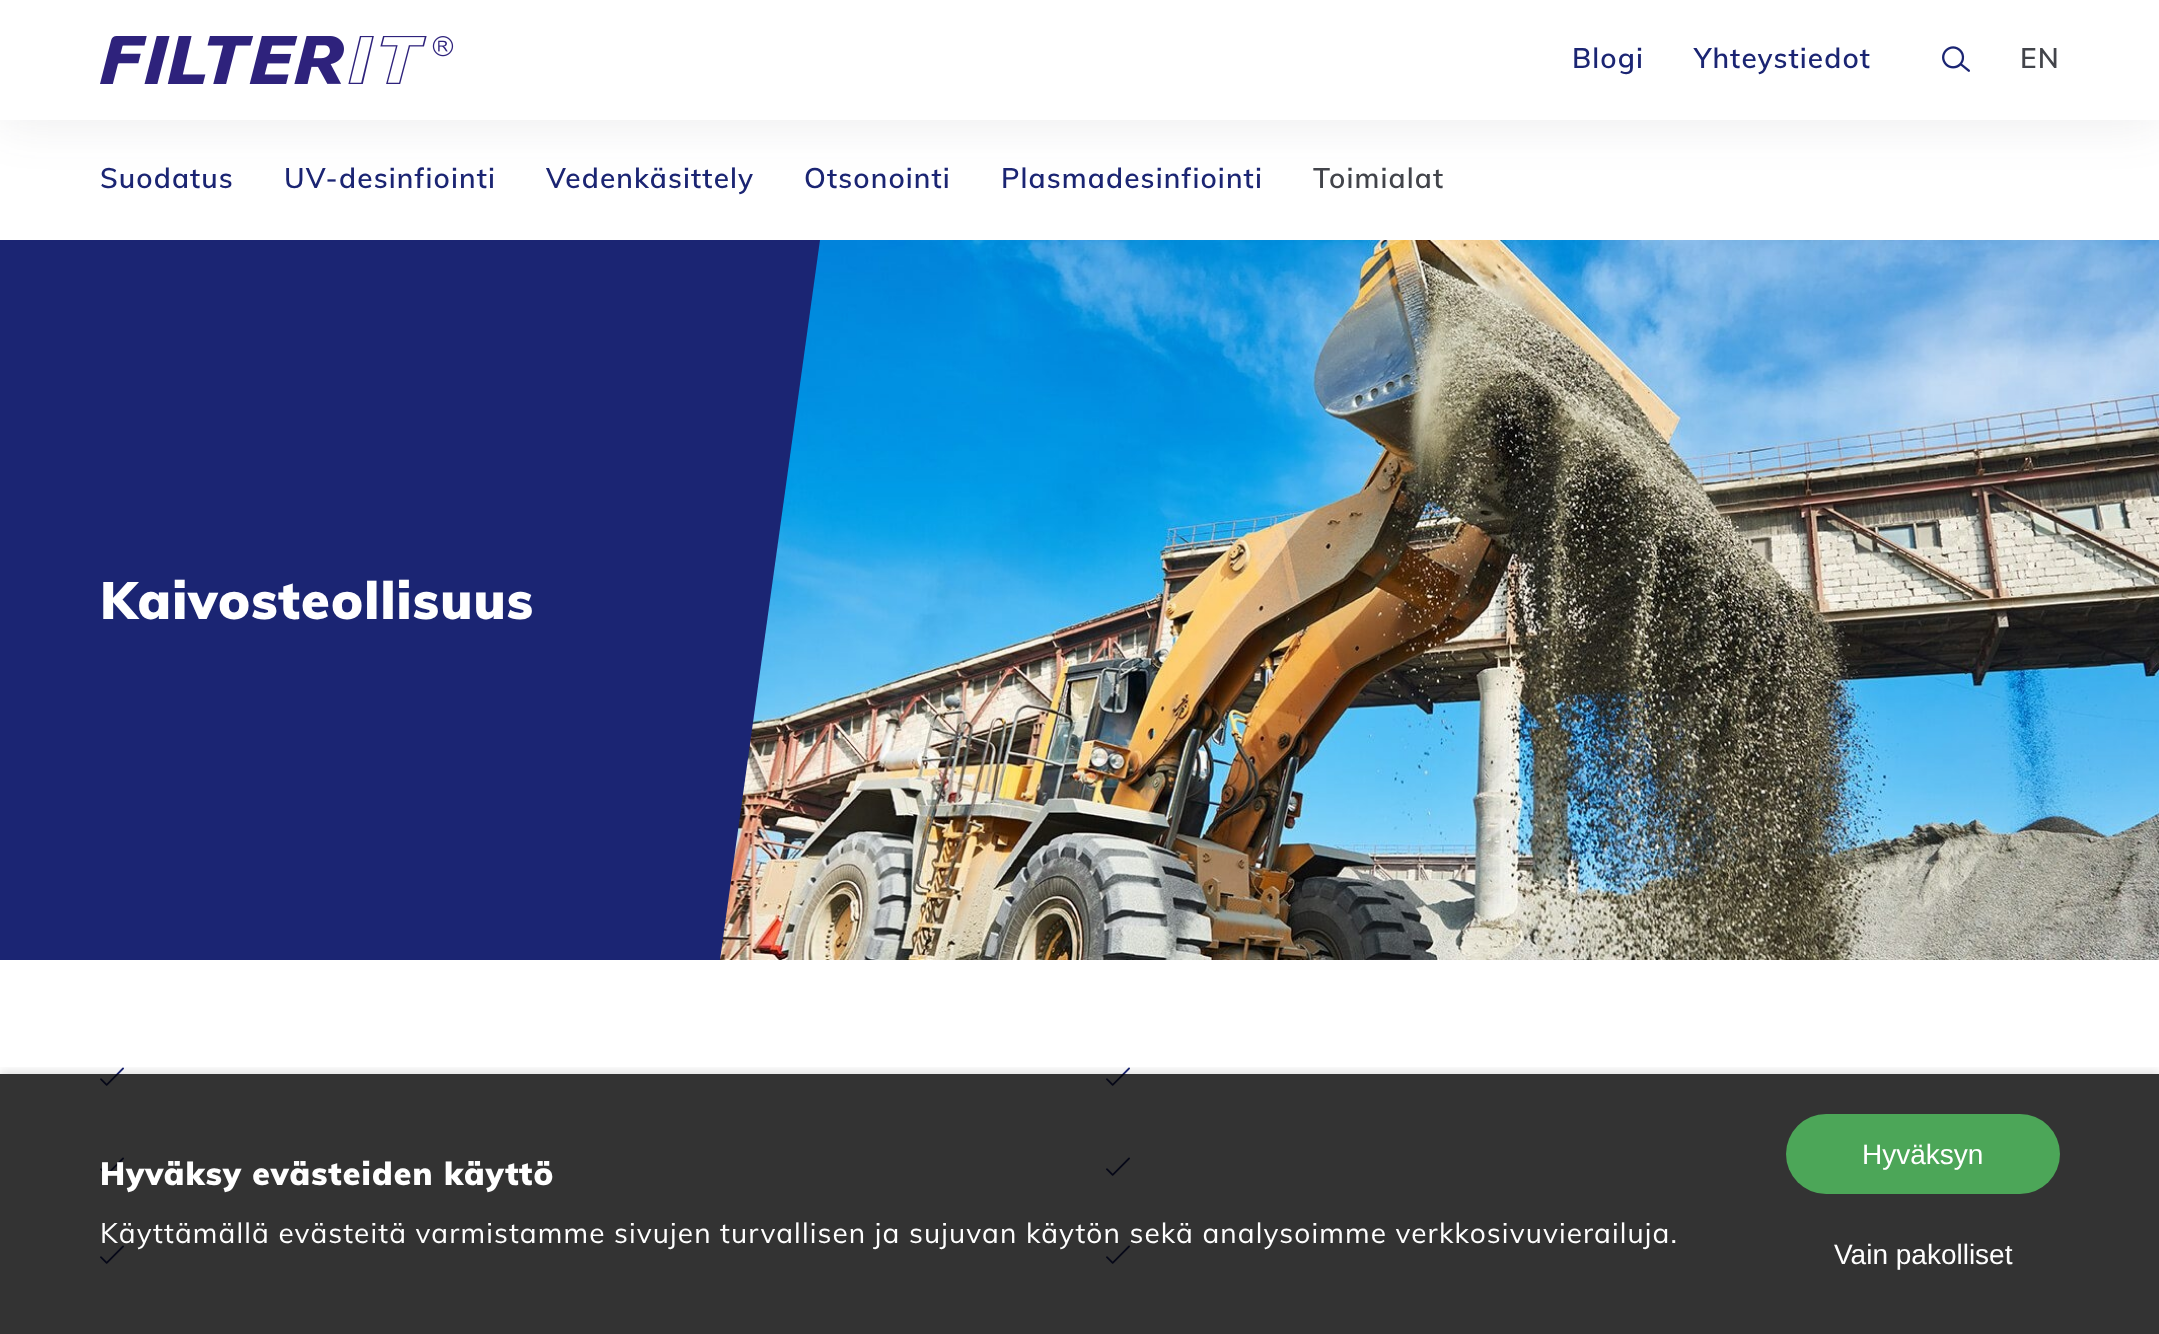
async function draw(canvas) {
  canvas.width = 2159;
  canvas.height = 1334;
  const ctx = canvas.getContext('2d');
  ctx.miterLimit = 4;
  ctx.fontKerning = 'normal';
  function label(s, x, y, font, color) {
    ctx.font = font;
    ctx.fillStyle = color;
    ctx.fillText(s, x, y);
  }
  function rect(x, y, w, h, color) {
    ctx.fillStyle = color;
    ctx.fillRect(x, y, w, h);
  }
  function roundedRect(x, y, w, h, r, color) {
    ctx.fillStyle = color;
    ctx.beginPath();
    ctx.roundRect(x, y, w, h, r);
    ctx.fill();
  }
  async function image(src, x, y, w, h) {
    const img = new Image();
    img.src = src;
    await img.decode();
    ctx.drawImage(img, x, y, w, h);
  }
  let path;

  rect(0, 0, 2159, 1334, '#fff');
  ctx.fillStyle = '#42444a1a';
  ctx.filter = 'blur(25px)';
  ctx.beginPath();
  ctx.rect(0, 2, 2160, 120);
  ctx.fill();
  ctx.filter = 'none';
  rect(0, 0, 2159, 120, '#fff');
  await image('assets/img1.png', 100, 36, 354, 48);
  ctx.letterSpacing = '1.12px';
  label('Blogi', 1572, 68, '600 28px Muli', '#1b2573');
  label('Yhteystiedot', 1694, 68, '600 28px Muli', '#1b2573');
  await image('assets/img2.png', 1942, 46, 28, 26);
  label('EN', 2020, 68, '600 28px Muli', '#42444a');
  label('Suodatus', 100, 188, '600 28px Muli', '#1b2573');
  label('UV-desinfiointi', 284, 188, '600 28px Muli', '#1b2573');
  label('Vedenkäsittely', 546, 188, '600 28px Muli', '#1b2573');
  label('Otsonointi', 804, 188, '600 28px Muli', '#1b2573');
  label('Plasmadesinfiointi', 1001, 188, '600 28px Muli', '#1b2573');
  label('Toimialat', 1313, 188, '600 28px Muli', '#42444a');
  await image('assets/img3.png', 720, 240, 1439, 720);
  ctx.fillStyle = '#1b2573';
  path = new Path2D('M0 240V960H720L820 240Z');
  ctx.fill(path);
  label('Kaivosteollisuus', 100, 619, '900 52px Muli', '#fff');
  await image('assets/img4.png', 100, 1067, 24, 19);
  await image('assets/img4.png', 1106, 1067, 24, 19);
  await image('assets/img4.png', 100, 1157, 24, 19);
  await image('assets/img4.png', 1106, 1157, 24, 19);
  await image('assets/img4.png', 100, 1245, 24, 19);
  await image('assets/img4.png', 1106, 1245, 24, 19);
  ctx.save();
  ctx.beginPath();
  ctx.rect(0, 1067, 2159, 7);
  ctx.clip();
  ctx.fillStyle = '#0000001a';
  ctx.filter = 'blur(4px)';
  ctx.beginPath();
  ctx.rect(0, 1070, 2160, 260);
  ctx.fill();
  ctx.filter = 'none';
  ctx.restore();
  rect(0, 1074, 2159, 260, '#000000cc');
  label('Hyväksy evästeiden käyttö', 100, 1185, '900 32px Muli', '#fff');
  label('Käyttämällä evästeitä varmistamme sivujen turvallisen ja sujuvan käytön sekä analysoimme verkkosivuvierailuja.', 100, 1243, '28px Muli', '#fff');
  roundedRect(1786, 1114, 274, 80, 40, '#4ca658');
  ctx.letterSpacing = '0px';
  label('Hyväksyn', 1862, 1164, '28px Liberation Sans', '#fff');
  label('Vain pakolliset', 1834, 1264, '28px Liberation Sans', '#fff');
}

draw(document.querySelector('canvas'));
